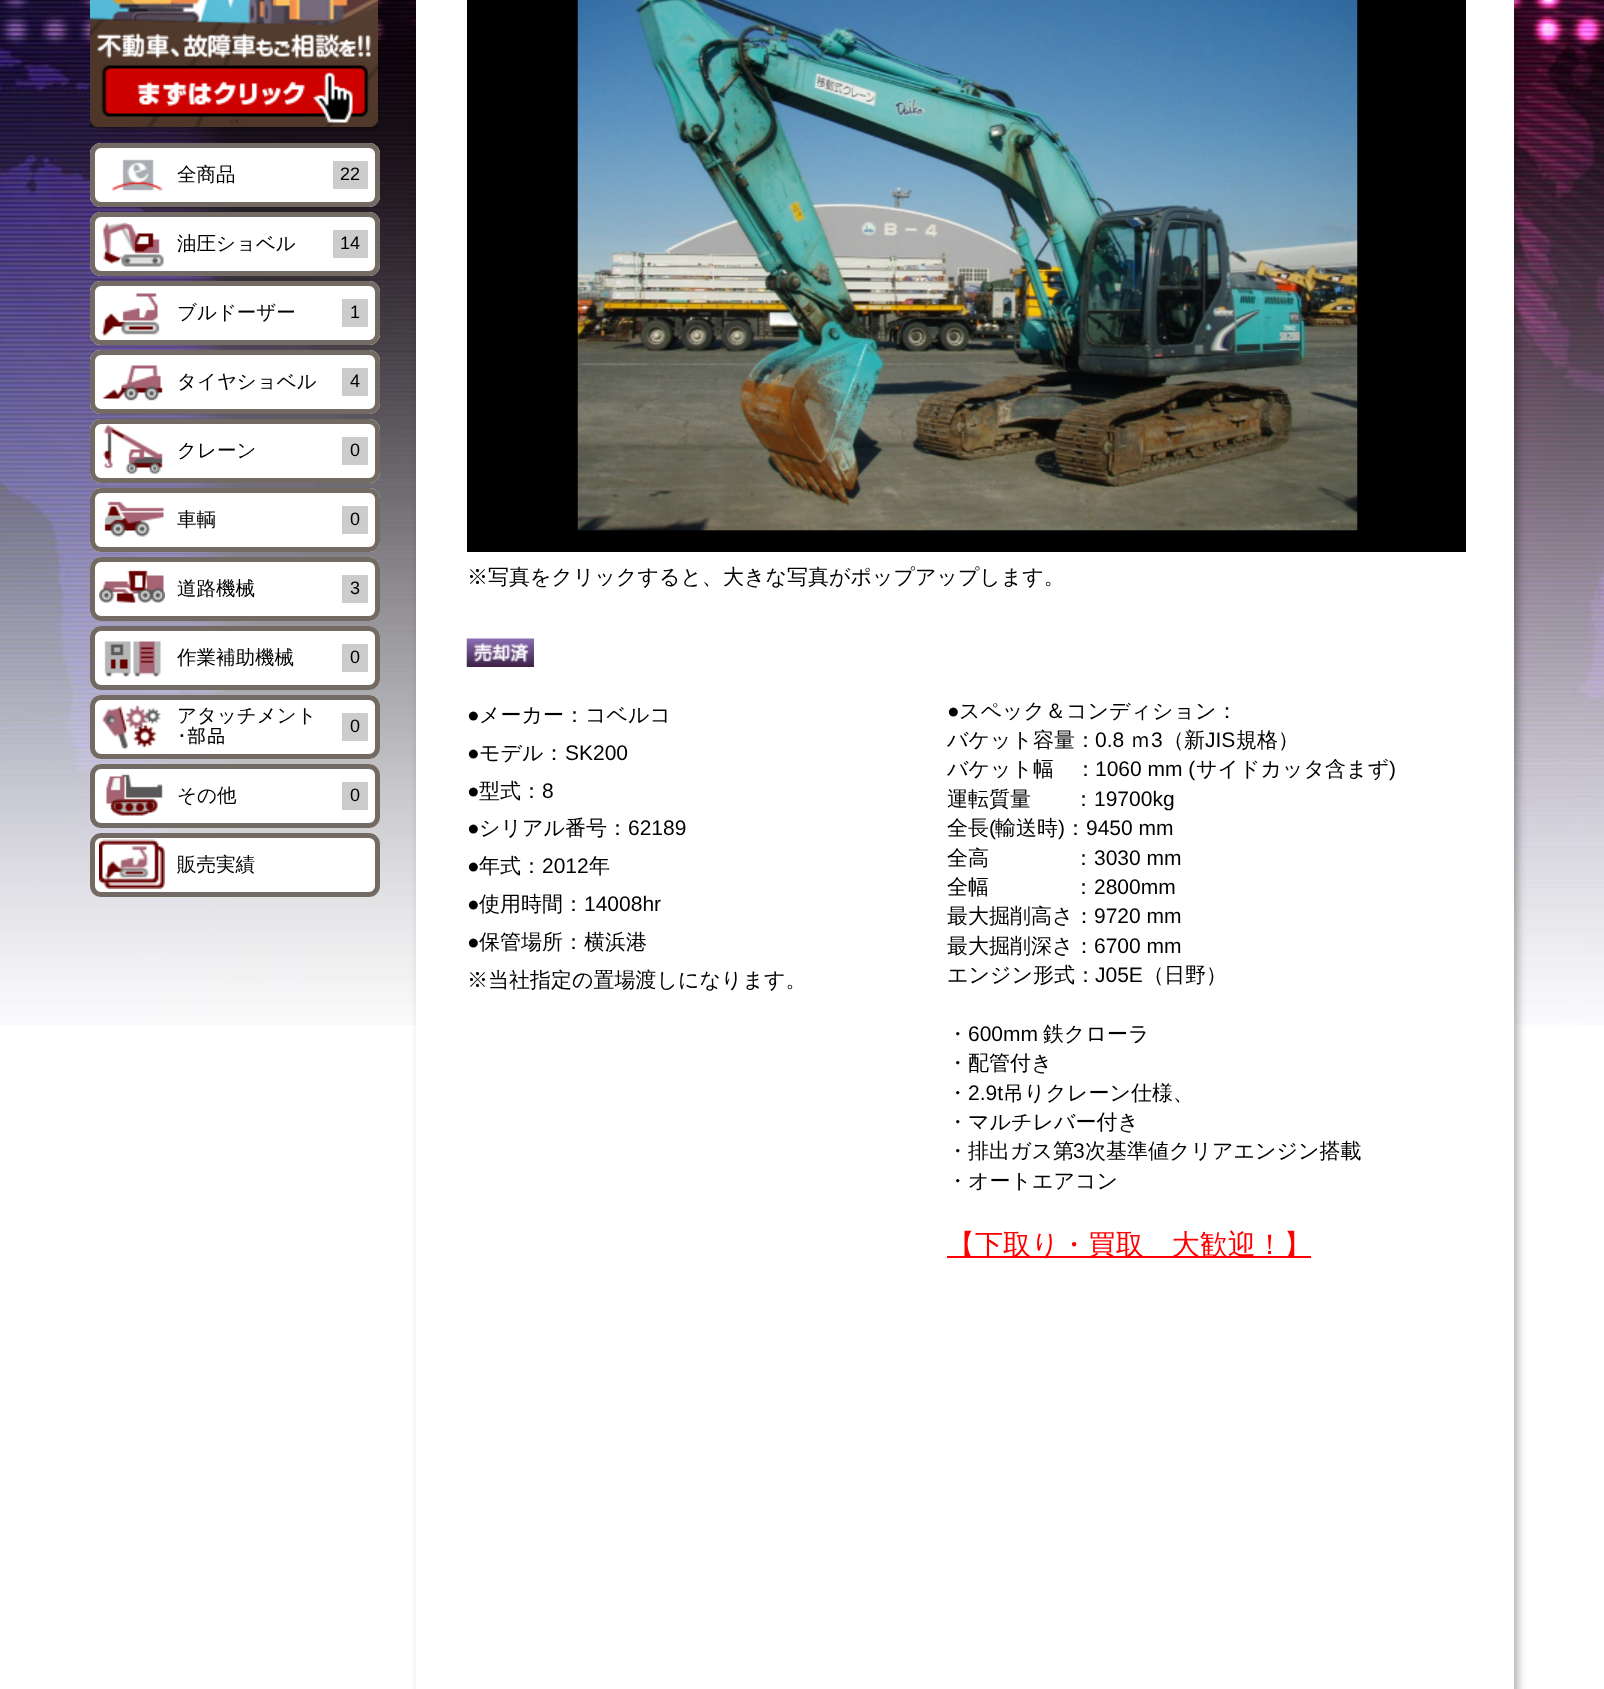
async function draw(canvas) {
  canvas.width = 1604;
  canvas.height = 1689;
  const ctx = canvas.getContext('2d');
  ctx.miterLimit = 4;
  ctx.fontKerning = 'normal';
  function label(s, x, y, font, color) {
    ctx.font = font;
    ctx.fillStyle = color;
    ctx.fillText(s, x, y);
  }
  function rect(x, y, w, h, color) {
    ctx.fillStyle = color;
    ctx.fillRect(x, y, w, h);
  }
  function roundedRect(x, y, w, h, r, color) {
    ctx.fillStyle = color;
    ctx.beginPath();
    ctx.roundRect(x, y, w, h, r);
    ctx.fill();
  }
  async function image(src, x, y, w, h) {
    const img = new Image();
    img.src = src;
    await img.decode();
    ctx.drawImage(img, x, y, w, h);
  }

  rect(0, 0, 1604, 1689, '#fff');
  await image('assets/img1.png', 0, 0, 1604, 1025);
  ctx.fillStyle = '#0000004d';
  ctx.filter = 'blur(1.5px)';
  ctx.beginPath();
  ctx.roundRect(92, -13, 285, 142, 8);
  ctx.fill();
  ctx.filter = 'none';
  await image('assets/img2.png', 90, 0, 288, 127);
  roundedRect(90, 143, 290, 64, 11, '#fff');
  await image('assets/img3.png', 112, 159, 51, 32);
  ctx.beginPath();
  ctx.roundRect(92.5, 145.5, 285, 59, 8.5);
  ctx.strokeStyle = '#736b63';
  ctx.lineWidth = 5;
  ctx.stroke();
  label('全商品', 177, 181, '500 19.5px WenQuanYi Zen Hei', '#000');
  rect(333, 161, 35, 28, '#ccc');
  label('22', 340, 180, '18px Liberation Sans', '#000');
  roundedRect(90, 212, 290, 64, 11, '#fff');
  await image('assets/img4.png', 102, 222, 62, 45);
  ctx.beginPath();
  ctx.roundRect(92.5, 214.5, 285, 59, 8.5);
  ctx.stroke();
  label('油圧ショベル', 177, 250, '500 19.5px WenQuanYi Zen Hei', '#000');
  rect(333, 230, 35, 28, '#ccc');
  label('14', 340, 249, '18px Liberation Sans', '#000');
  roundedRect(90, 281, 290, 64, 11, '#fff');
  await image('assets/img5.png', 101, 293, 59, 43);
  ctx.beginPath();
  ctx.roundRect(92.5, 283.5, 285, 59, 8.5);
  ctx.stroke();
  label('ブルドーザー', 177, 319, '500 19.5px WenQuanYi Zen Hei', '#000');
  rect(342, 299, 26, 28, '#ccc');
  label('1', 350, 318, '18px Liberation Sans', '#000');
  roundedRect(90, 350, 290, 64, 11, '#fff');
  await image('assets/img6.png', 102, 365, 61, 36);
  ctx.beginPath();
  ctx.roundRect(92.5, 352.5, 285, 59, 8.5);
  ctx.stroke();
  label('タイヤショベル', 177, 388, '500 19.5px WenQuanYi Zen Hei', '#000');
  rect(342, 368, 26, 28, '#ccc');
  label('4', 350, 387, '18px Liberation Sans', '#000');
  roundedRect(90, 419, 290, 64, 11, '#fff');
  await image('assets/img7.png', 103, 425, 60, 49);
  ctx.beginPath();
  ctx.roundRect(92.5, 421.5, 285, 59, 8.5);
  ctx.stroke();
  label('クレーン', 177, 457, '500 19.5px WenQuanYi Zen Hei', '#000');
  rect(342, 437, 26, 28, '#ccc');
  label('0', 350, 456, '18px Liberation Sans', '#000');
  roundedRect(90, 488, 290, 64, 11, '#fff');
  await image('assets/img8.png', 104, 501, 60, 36);
  ctx.beginPath();
  ctx.roundRect(92.5, 490.5, 285, 59, 8.5);
  ctx.stroke();
  label('車輌', 177, 526, '500 19.5px WenQuanYi Zen Hei', '#000');
  rect(342, 506, 26, 28, '#ccc');
  label('0', 350, 525, '18px Liberation Sans', '#000');
  roundedRect(90, 557, 290, 64, 11, '#fff');
  await image('assets/img9.png', 99, 570, 66, 33);
  ctx.beginPath();
  ctx.roundRect(92.5, 559.5, 285, 59, 8.5);
  ctx.stroke();
  label('道路機械', 177, 595, '500 19.5px WenQuanYi Zen Hei', '#000');
  rect(342, 575, 26, 28, '#ccc');
  label('3', 350, 594, '18px Liberation Sans', '#000');
  roundedRect(90, 626, 290, 64, 11, '#fff');
  await image('assets/img10.png', 104, 641, 57, 36);
  ctx.beginPath();
  ctx.roundRect(92.5, 628.5, 285, 59, 8.5);
  ctx.stroke();
  label('作業補助機械', 177, 664, '500 19.5px WenQuanYi Zen Hei', '#000');
  rect(342, 644, 26, 28, '#ccc');
  label('0', 350, 663, '18px Liberation Sans', '#000');
  roundedRect(90, 695, 290, 64, 11, '#fff');
  await image('assets/img11.png', 101, 705, 60, 45);
  ctx.beginPath();
  ctx.roundRect(92.5, 697.5, 285, 59, 8.5);
  ctx.stroke();
  label('アタッチメント', 177, 722, '500 19.5px WenQuanYi Zen Hei', '#000');
  label('･部品', 177, 743, '19.5px IPAPGothic', '#000');
  rect(342, 713, 26, 28, '#ccc');
  label('0', 350, 732, '18px Liberation Sans', '#000');
  roundedRect(90, 764, 290, 64, 11, '#fff');
  await image('assets/img12.png', 106, 773, 57, 43);
  ctx.beginPath();
  ctx.roundRect(92.5, 766.5, 285, 59, 8.5);
  ctx.stroke();
  label('その他', 177, 802, '500 19.5px WenQuanYi Zen Hei', '#000');
  rect(342, 782, 26, 28, '#ccc');
  label('0', 350, 801, '18px Liberation Sans', '#000');
  roundedRect(90, 833, 290, 64, 11, '#fff');
  await image('assets/img13.png', 99, 839, 66, 50);
  ctx.beginPath();
  ctx.roundRect(92.5, 835.5, 285, 59, 8.5);
  ctx.stroke();
  label('販売実績', 177, 871, '500 19.5px WenQuanYi Zen Hei', '#000');
  ctx.fillStyle = '#0000004d';
  ctx.filter = 'blur(4px)';
  ctx.beginPath();
  ctx.roundRect(420, -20, 1098, 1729, 8);
  ctx.fill();
  ctx.filter = 'none';
  rect(416, 0, 1098, 1689, '#fff');
  rect(467, 0, 999, 552, '#000');
  await image('assets/img14.png', 577, 0, 781, 531);
  label('※写真をクリックすると、大きな写真がポップアップします。', 467, 584, '500 21px WenQuanYi Zen Hei', '#000');
  await image('assets/img15.png', 466, 638, 68, 29);
  label('●', 467, 722, '21px Liberation Sans', '#000');
  label('メーカー：コベルコ', 479, 722, '500 21px WenQuanYi Zen Hei', '#000');
  label('●', 467, 760, '21px Liberation Sans', '#000');
  label('モデル：', 479, 760, '500 21px WenQuanYi Zen Hei', '#000');
  label('SK200', 565, 760, '21px Liberation Sans', '#000');
  label('●', 467, 798, '21px Liberation Sans', '#000');
  label('型式：', 479, 798, '500 21px WenQuanYi Zen Hei', '#000');
  label('8', 542, 798, '21px Liberation Sans', '#000');
  label('●', 467, 835, '21px Liberation Sans', '#000');
  label('シリアル番号：', 479, 835, '500 21px WenQuanYi Zen Hei', '#000');
  label('62189', 628, 835, '21px Liberation Sans', '#000');
  label('●', 467, 873, '21px Liberation Sans', '#000');
  label('年式：', 479, 873, '500 21px WenQuanYi Zen Hei', '#000');
  label('2012', 542, 873, '21px Liberation Sans', '#000');
  label('年', 589, 873, '500 21px WenQuanYi Zen Hei', '#000');
  label('●', 467, 911, '21px Liberation Sans', '#000');
  label('使用時間：', 479, 911, '500 21px WenQuanYi Zen Hei', '#000');
  label('14008hr', 584, 911, '21px Liberation Sans', '#000');
  label('●', 467, 949, '21px Liberation Sans', '#000');
  label('保管場所：横浜港', 479, 949, '500 21px WenQuanYi Zen Hei', '#000');
  label('※当社指定の置場渡しになります。', 467, 987, '500 21px WenQuanYi Zen Hei', '#000');
  label('●', 947, 718, '21px Liberation Sans', '#000');
  label('スペック＆コンディション：', 959, 718, '500 21px WenQuanYi Zen Hei', '#000');
  label('バケット容量：', 947, 747, '500 21px WenQuanYi Zen Hei', '#000');
  label('0.8', 1095, 747, '21px Liberation Sans', '#000');
  label('ｍ', 1130, 747, '500 21px WenQuanYi Zen Hei', '#000');
  label('3', 1151, 747, '21px Liberation Sans', '#000');
  label('（新', 1163, 747, '500 21px WenQuanYi Zen Hei', '#000');
  label('JIS', 1205, 747, '21px Liberation Sans', '#000');
  label('規格）', 1236, 747, '500 21px WenQuanYi Zen Hei', '#000');
  label('バケット幅　：', 947, 776, '500 21px WenQuanYi Zen Hei', '#000');
  label('1060 mm (', 1095, 776, '21px Liberation Sans', '#000');
  label('サイドカッタ含まず', 1196, 776, '500 21px WenQuanYi Zen Hei', '#000');
  label(')', 1389, 776, '21px Liberation Sans', '#000');
  label('運転質量　　：', 947, 806, '500 21px WenQuanYi Zen Hei', '#000');
  label('19700kg', 1094, 806, '21px Liberation Sans', '#000');
  label('全長', 947, 835, '500 21px WenQuanYi Zen Hei', '#000');
  label('(', 989, 835, '21px Liberation Sans', '#000');
  label('輸送時', 995, 835, '500 21px WenQuanYi Zen Hei', '#000');
  label(')', 1058, 835, '21px Liberation Sans', '#000');
  label('：', 1065, 835, '500 21px WenQuanYi Zen Hei', '#000');
  label('9450 mm', 1086, 835, '21px Liberation Sans', '#000');
  label('全高　　　　：', 947, 865, '500 21px WenQuanYi Zen Hei', '#000');
  label('3030 mm', 1094, 865, '21px Liberation Sans', '#000');
  label('全幅　　　　：', 947, 894, '500 21px WenQuanYi Zen Hei', '#000');
  label('2800mm', 1094, 894, '21px Liberation Sans', '#000');
  label('最大掘削高さ：', 947, 923, '500 21px WenQuanYi Zen Hei', '#000');
  label('9720 mm', 1094, 923, '21px Liberation Sans', '#000');
  label('最大掘削深さ：', 947, 953, '500 21px WenQuanYi Zen Hei', '#000');
  label('6700 mm', 1094, 953, '21px Liberation Sans', '#000');
  label('エンジン形式：', 947, 982, '500 21px WenQuanYi Zen Hei', '#000');
  label('J05E', 1095, 982, '21px Liberation Sans', '#000');
  label('（日野）', 1143, 982, '500 21px WenQuanYi Zen Hei', '#000');
  label('・', 947, 1041, '500 21px WenQuanYi Zen Hei', '#000');
  label('600mm', 968, 1041, '21px Liberation Sans', '#000');
  label('鉄クローラ', 1043, 1041, '500 21px WenQuanYi Zen Hei', '#000');
  label('・配管付き', 947, 1070, '500 21px WenQuanYi Zen Hei', '#000');
  label('・', 947, 1100, '500 21px WenQuanYi Zen Hei', '#000');
  label('2.9t', 968, 1100, '21px Liberation Sans', '#000');
  label('吊りクレーン仕様、', 1003, 1100, '500 21px WenQuanYi Zen Hei', '#000');
  label('・マルチレバー付き', 947, 1129, '500 21px WenQuanYi Zen Hei', '#000');
  label('・排出ガス第', 947, 1158, '500 21px WenQuanYi Zen Hei', '#000');
  label('3', 1073, 1158, '21px Liberation Sans', '#000');
  label('次基準値クリアエンジン搭載', 1085, 1158, '500 21px WenQuanYi Zen Hei', '#000');
  label('・オートエアコン', 947, 1188, '500 21px WenQuanYi Zen Hei', '#000');
  rect(947, 1256, 364, 2, '#f00');
  label('【下取り・買取　大歓迎！】', 947, 1254, '500 28px WenQuanYi Zen Hei', '#f00');
}

draw(document.querySelector('canvas'));
